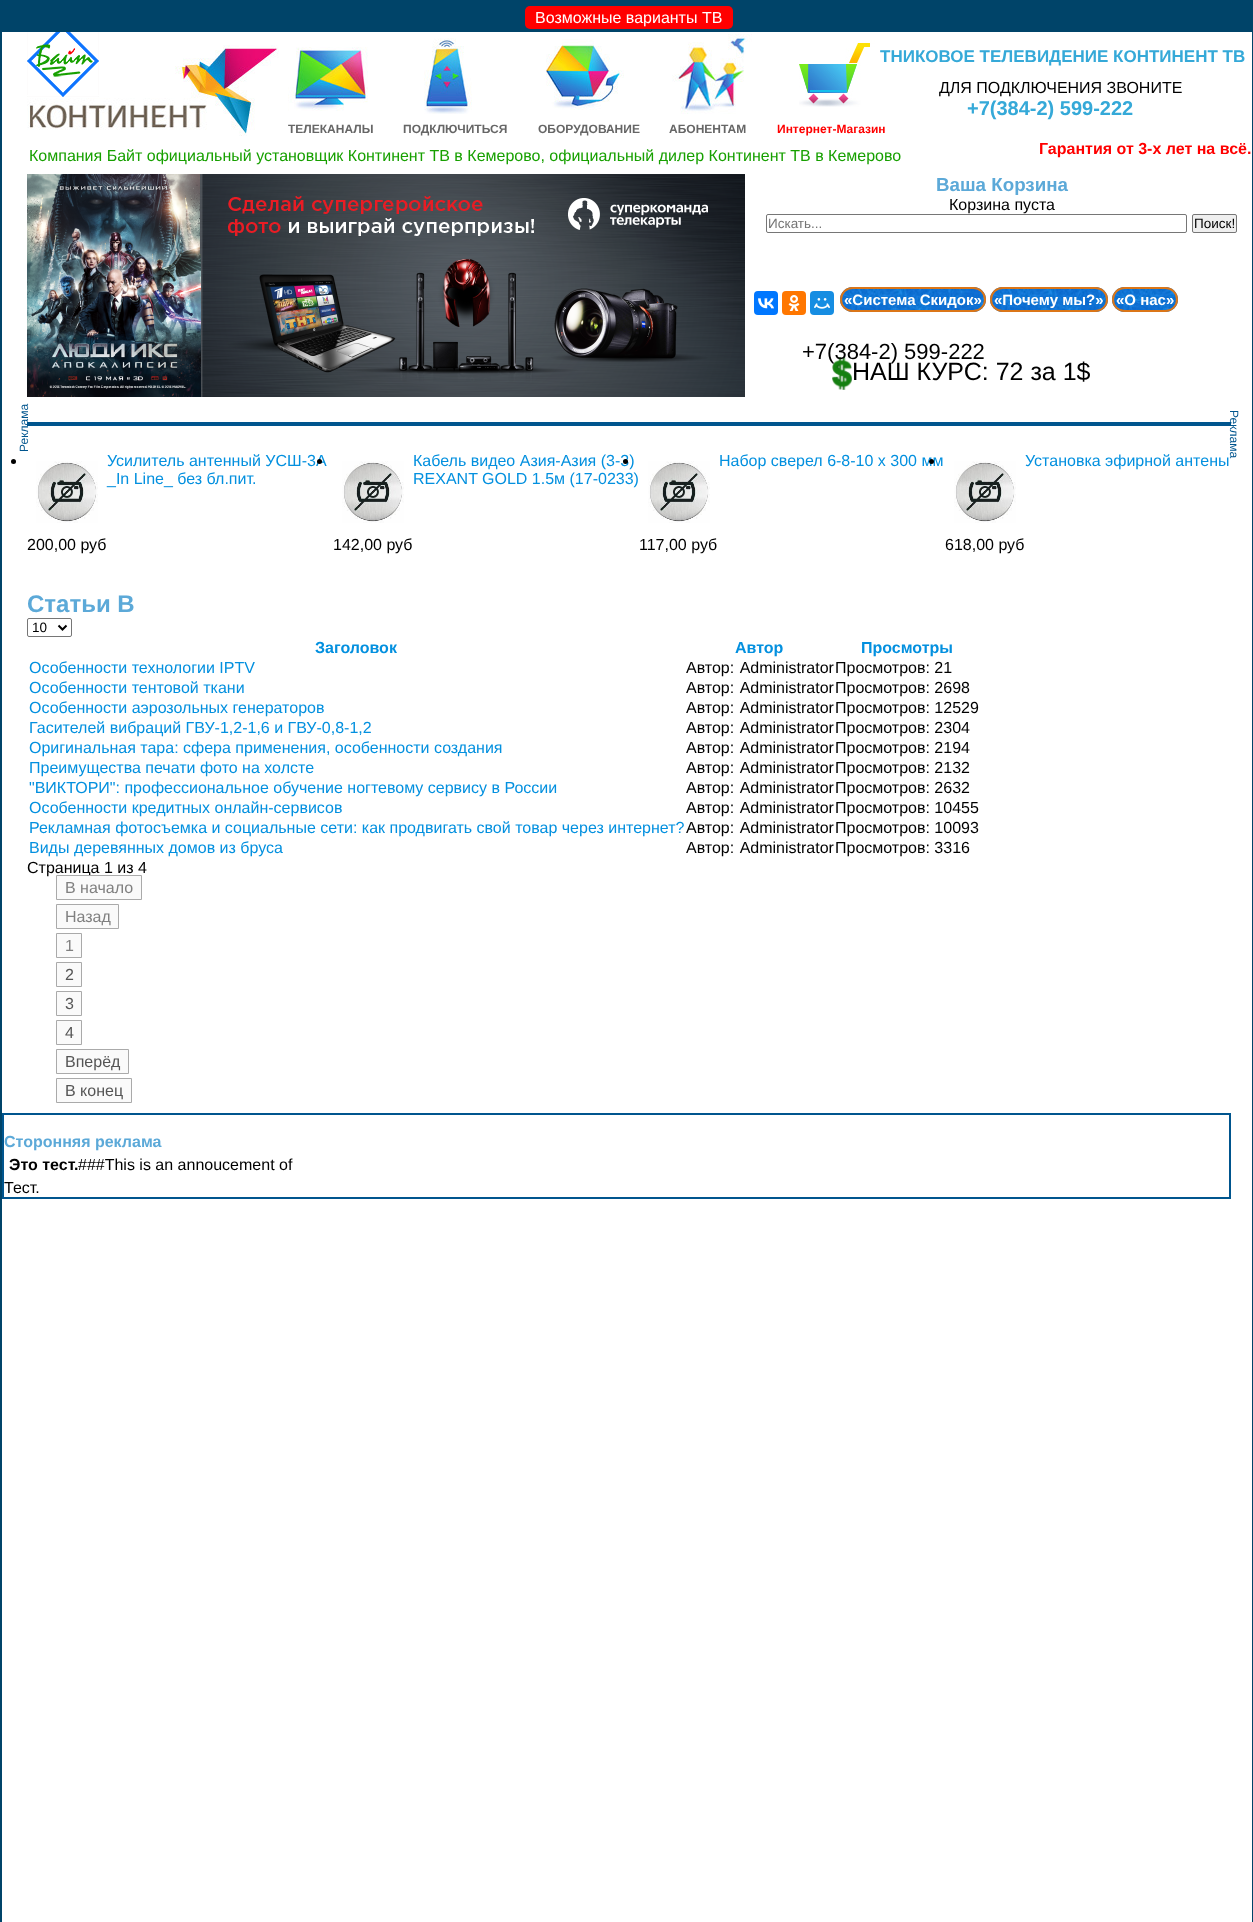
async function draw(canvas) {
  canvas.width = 1253;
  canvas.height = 1922;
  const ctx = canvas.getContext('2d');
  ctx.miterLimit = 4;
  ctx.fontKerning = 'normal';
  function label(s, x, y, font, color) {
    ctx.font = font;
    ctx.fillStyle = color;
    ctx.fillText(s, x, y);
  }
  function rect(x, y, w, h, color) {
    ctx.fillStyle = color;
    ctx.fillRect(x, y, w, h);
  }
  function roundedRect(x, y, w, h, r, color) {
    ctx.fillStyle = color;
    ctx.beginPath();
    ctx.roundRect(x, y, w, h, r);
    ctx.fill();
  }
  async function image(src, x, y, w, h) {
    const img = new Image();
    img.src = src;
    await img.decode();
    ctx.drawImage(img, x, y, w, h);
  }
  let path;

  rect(0, 0, 1253, 1922, '#004469');
  roundedRect(525, 6, 208, 23, 5, '#f00');
  label('Возможные варианты ТВ', 535, 23, '16px Liberation Sans', '#fff');
  rect(2, 32, 1250, 1890, '#fff');
  await image('assets/img2.png', 27, 45, 252, 91);
  await image('assets/img1.png', 27, 32, 72, 65);
  label('ТНИКОВОЕ ТЕЛЕВИДЕНИЕ КОНТИНЕНТ ТВ', 880, 62, 'bold 17px Liberation Sans', '#35a9d8');
  label('ДЛЯ ПОДКЛЮЧЕНИЯ ЗВОНИТЕ', 939, 93, '16px Liberation Sans', '#000');
  label('+7(384-2) 599-222', 967, 115, 'bold 20px Liberation Sans', '#35a9d8');
  label('Компания Байт официальный установщик Континент ТВ в Кемерово, официальный дилер Континент ТВ в Кемерово', 29, 161, '16px Liberation Sans', '#17a000');
  label('Гарантия от 3-х лет на всё.', 1039, 154, 'bold 16px Liberation Sans', '#f00');
  await image('assets/img3.png', 288, 47, 80, 64);
  label('ТЕЛЕКАНАЛЫ', 288, 133, 'bold 12px Liberation Sans', '#666');
  await image('assets/img4.png', 424, 38, 48, 76);
  label('ПОДКЛЮЧИТЬСЯ', 403, 133, 'bold 12px Liberation Sans', '#666');
  await image('assets/img5.png', 546, 39, 78, 71);
  label('ОБОРУДОВАНИЕ', 538, 133, 'bold 12px Liberation Sans', '#666');
  await image('assets/img6.png', 672, 34, 80, 80);
  label('АБОНЕНТАМ', 669, 133, 'bold 12px Liberation Sans', '#666');
  await image('assets/img7.png', 799, 40, 76, 67);
  label('Интернет-Магазин', 777, 133, 'bold 12px Liberation Sans', '#f00');
  await image('assets/img8.png', 27, 174, 718, 223);
  label('Ваша Корзина', 936, 191, 'bold 18.75px Liberation Sans', '#5ca9d8');
  label('Корзина пуста', 949, 210, '16px Liberation Sans', '#000');
  ctx.beginPath();
  ctx.roundRect(766.5, 214.5, 420, 18, 1.5);
  ctx.strokeStyle = '#767676';
  ctx.stroke();
  label('Искать...', 768, 228, '13.5px Liberation Sans', '#757575');
  ctx.fillStyle = '#efefef';
  ctx.beginPath();
  ctx.roundRect(1192.5, 214.5, 44, 18, 1.5);
  ctx.fill();
  ctx.stroke();
  label('Поиск!', 1194, 228, '13.5px Liberation Sans', '#000');
  rect(27, 422, 1204, 4, '#00558e');
  ctx.font = '12px Liberation Sans';
  ctx.save();
  ctx.translate(28, 452);
  ctx.rotate(-90 * Math.PI / 180);
  ctx.fillText('Реклама', 0, 0);
  ctx.restore();
  ctx.save();
  ctx.translate(1230, 410);
  ctx.rotate(90 * Math.PI / 180);
  ctx.fillText('Реклама', 0, 0);
  ctx.restore();
  ctx.fillStyle = '#000';
  ctx.beginPath();
  ctx.arc(13.5, 461.5, 2.5, 0, 2 * Math.PI);
  ctx.fill();
  await image('assets/img9.png', 36, 461, 62, 62);
  label('Усилитель антенный УСШ-3А', 107, 466, '16px Liberation Sans', '#0390df');
  label('_In Line_ без бл.пит.', 107, 484, '16px Liberation Sans', '#0390df');
  label('200,00 руб', 27, 550, '16px Liberation Sans', '#000');
  ctx.beginPath();
  ctx.arc(319.5, 461.5, 2.5, 0, 2 * Math.PI);
  ctx.fill();
  await image('assets/img9.png', 342, 461, 62, 62);
  label('Кабель видео Азия-Азия (3-3)', 413, 466, '16px Liberation Sans', '#0390df');
  label('REXANT GOLD 1.5м (17-0233)', 413, 484, '16px Liberation Sans', '#0390df');
  label('142,00 руб', 333, 550, '16px Liberation Sans', '#000');
  ctx.beginPath();
  ctx.arc(625.5, 461.5, 2.5, 0, 2 * Math.PI);
  ctx.fill();
  await image('assets/img9.png', 648, 461, 62, 62);
  label('Набор сверел 6-8-10 х 300 мм', 719, 466, '16px Liberation Sans', '#0390df');
  label('117,00 руб', 639, 550, '16px Liberation Sans', '#000');
  ctx.beginPath();
  ctx.arc(931.5, 461.5, 2.5, 0, 2 * Math.PI);
  ctx.fill();
  await image('assets/img10.png', 954, 461, 62, 62);
  label('Установка эфирной антены', 1025, 466, '16px Liberation Sans', '#0390df');
  label('618,00 руб', 945, 550, '16px Liberation Sans', '#000');
  roundedRect(754, 291, 24, 24, 4, '#07f');
  await image('assets/img11.png', 758, 298, 16, 11);
  roundedRect(782, 291, 24, 24, 4, '#f70');
  await image('assets/img12.png', 788, 295, 12, 16);
  roundedRect(810, 291, 24, 24, 4, '#168de2');
  await image('assets/img13.png', 814, 298, 16, 11);
  await image('assets/img14.png', 840, 287, 146, 25);
  ctx.beginPath();
  ctx.roundRect(841, 288, 144, 23, 11.5);
  ctx.strokeStyle = '#db7618';
  ctx.lineWidth = 2;
  ctx.stroke();
  label('«Система Скидок»', 844, 305, 'bold 15px Liberation Sans', '#fff');
  await image('assets/img15.png', 990, 287, 118, 25);
  ctx.beginPath();
  ctx.roundRect(991, 288, 116, 23, 11.5);
  ctx.stroke();
  label('«Почему мы?»', 994, 305, 'bold 15px Liberation Sans', '#fff');
  await image('assets/img16.png', 1112, 287, 66, 25);
  ctx.beginPath();
  ctx.roundRect(1113, 288, 64, 23, 11.5);
  ctx.stroke();
  label('«О нас»', 1116, 305, 'bold 15px Liberation Sans', '#fff');
  await image('assets/img17.png', 832, 357, 20, 33);
  label('+7(384-2) 599-222', 802, 359, '22px Liberation Sans', '#000');
  label('НАШ КУРС: 72 за 1$', 852, 380, '25px Liberation Sans', '#000');
  label('Статьи В', 27, 612, 'bold 24px Liberation Sans', '#5ca9d8');
  ctx.beginPath();
  ctx.roundRect(27.5, 618.5, 44, 18, 1.5);
  ctx.strokeStyle = '#767676';
  ctx.lineWidth = 1;
  ctx.stroke();
  path = new Path2D('M58.5 625.5L62.5 629.5L66.5 625.5');
  ctx.strokeStyle = '#000';
  ctx.lineWidth = 2;
  ctx.stroke(path);
  label('10', 32, 632, '13.5px Liberation Sans', '#000');
  label('Заголовок', 315, 653, 'bold 16px Liberation Sans', '#0390df');
  label('Автор', 735, 653, 'bold 16px Liberation Sans', '#0390df');
  label('Просмотры', 861, 653, 'bold 16px Liberation Sans', '#0390df');
  label('Особенности технологии IPTV', 29, 673, '16px Liberation Sans', '#0390df');
  ctx.wordSpacing = '1px';
  label('Автор: Administrator', 686, 673, '16px Liberation Sans', '#000');
  ctx.wordSpacing = '0px';
  label('Просмотров: 21', 835, 673, '16px Liberation Sans', '#000');
  label('Особенности тентовой ткани', 29, 693, '16px Liberation Sans', '#0390df');
  ctx.wordSpacing = '1px';
  label('Автор: Administrator', 686, 693, '16px Liberation Sans', '#000');
  ctx.wordSpacing = '0px';
  label('Просмотров: 2698', 835, 693, '16px Liberation Sans', '#000');
  label('Особенности аэрозольных генераторов', 29, 713, '16px Liberation Sans', '#0390df');
  ctx.wordSpacing = '1px';
  label('Автор: Administrator', 686, 713, '16px Liberation Sans', '#000');
  ctx.wordSpacing = '0px';
  label('Просмотров: 12529', 835, 713, '16px Liberation Sans', '#000');
  label('Гасителей вибраций ГВУ-1,2-1,6 и ГВУ-0,8-1,2', 29, 733, '16px Liberation Sans', '#0390df');
  ctx.wordSpacing = '1px';
  label('Автор: Administrator', 686, 733, '16px Liberation Sans', '#000');
  ctx.wordSpacing = '0px';
  label('Просмотров: 2304', 835, 733, '16px Liberation Sans', '#000');
  label('Оригинальная тара: сфера применения, особенности создания', 29, 753, '16px Liberation Sans', '#0390df');
  ctx.wordSpacing = '1px';
  label('Автор: Administrator', 686, 753, '16px Liberation Sans', '#000');
  ctx.wordSpacing = '0px';
  label('Просмотров: 2194', 835, 753, '16px Liberation Sans', '#000');
  label('Преимущества печати фото на холсте', 29, 773, '16px Liberation Sans', '#0390df');
  ctx.wordSpacing = '1px';
  label('Автор: Administrator', 686, 773, '16px Liberation Sans', '#000');
  ctx.wordSpacing = '0px';
  label('Просмотров: 2132', 835, 773, '16px Liberation Sans', '#000');
  label('"ВИКТОРИ": профессиональное обучение ногтевому сервису в России', 29, 793, '16px Liberation Sans', '#0390df');
  ctx.wordSpacing = '1px';
  label('Автор: Administrator', 686, 793, '16px Liberation Sans', '#000');
  ctx.wordSpacing = '0px';
  label('Просмотров: 2632', 835, 793, '16px Liberation Sans', '#000');
  label('Особенности кредитных онлайн-сервисов', 29, 813, '16px Liberation Sans', '#0390df');
  ctx.wordSpacing = '1px';
  label('Автор: Administrator', 686, 813, '16px Liberation Sans', '#000');
  ctx.wordSpacing = '0px';
  label('Просмотров: 10455', 835, 813, '16px Liberation Sans', '#000');
  label('Рекламная фотосъемка и социальные сети: как продвигать свой товар через интернет?', 29, 833, '16px Liberation Sans', '#0390df');
  ctx.wordSpacing = '1px';
  label('Автор: Administrator', 686, 833, '16px Liberation Sans', '#000');
  ctx.wordSpacing = '0px';
  label('Просмотров: 10093', 835, 833, '16px Liberation Sans', '#000');
  label('Виды деревянных домов из бруса', 29, 853, '16px Liberation Sans', '#0390df');
  ctx.wordSpacing = '1px';
  label('Автор: Administrator', 686, 853, '16px Liberation Sans', '#000');
  ctx.wordSpacing = '0px';
  label('Просмотров: 3316', 835, 853, '16px Liberation Sans', '#000');
  label('Страница 1 из 4', 27, 873, '16px Liberation Sans', '#000');
  ctx.fillStyle = '#fafafa';
  ctx.beginPath();
  ctx.rect(56.5, 875.5, 85, 24);
  ctx.fill();
  ctx.strokeStyle = '#aaa';
  ctx.lineWidth = 1;
  ctx.stroke();
  label('В начало', 65, 893, '16px Liberation Sans', '#808080');
  ctx.fillStyle = '#fafafa';
  ctx.beginPath();
  ctx.rect(56.5, 904.5, 62, 24);
  ctx.fill();
  ctx.stroke();
  label('Назад', 65, 922, '16px Liberation Sans', '#808080');
  ctx.fillStyle = '#fafafa';
  ctx.beginPath();
  ctx.rect(56.5, 933.5, 25, 24);
  ctx.fill();
  ctx.stroke();
  label('1', 65, 951, '16px Liberation Sans', '#808080');
  ctx.fillStyle = '#fafafa';
  ctx.beginPath();
  ctx.rect(56.5, 962.5, 25, 24);
  ctx.fill();
  ctx.stroke();
  label('2', 65, 980, '16px Liberation Sans', '#555');
  ctx.fillStyle = '#fafafa';
  ctx.beginPath();
  ctx.rect(56.5, 991.5, 25, 24);
  ctx.fill();
  ctx.stroke();
  label('3', 65, 1009, '16px Liberation Sans', '#555');
  ctx.fillStyle = '#fafafa';
  ctx.beginPath();
  ctx.rect(56.5, 1020.5, 25, 24);
  ctx.fill();
  ctx.stroke();
  label('4', 65, 1038, '16px Liberation Sans', '#555');
  ctx.fillStyle = '#fafafa';
  ctx.beginPath();
  ctx.rect(56.5, 1049.5, 72, 24);
  ctx.fill();
  ctx.stroke();
  label('Вперёд', 65, 1067, '16px Liberation Sans', '#555');
  ctx.fillStyle = '#fafafa';
  ctx.beginPath();
  ctx.rect(56.5, 1078.5, 75, 24);
  ctx.fill();
  ctx.stroke();
  label('В конец', 65, 1096, '16px Liberation Sans', '#555');
  ctx.strokeStyle = '#00558e';
  ctx.lineWidth = 2;
  ctx.strokeRect(3, 1114, 1227, 84);
  label('Сторонняя реклама', 4, 1147, 'bold 16px Liberation Sans', '#5ca9d8');
  label('Это тест.', 9, 1170, 'bold 16px Liberation Sans', '#000');
  label('###This is an annoucement of', 78, 1170, '16px Liberation Sans', '#000');
  label('Тест.', 4, 1193, '16px Liberation Sans', '#000');
}

draw(document.querySelector('canvas'));
